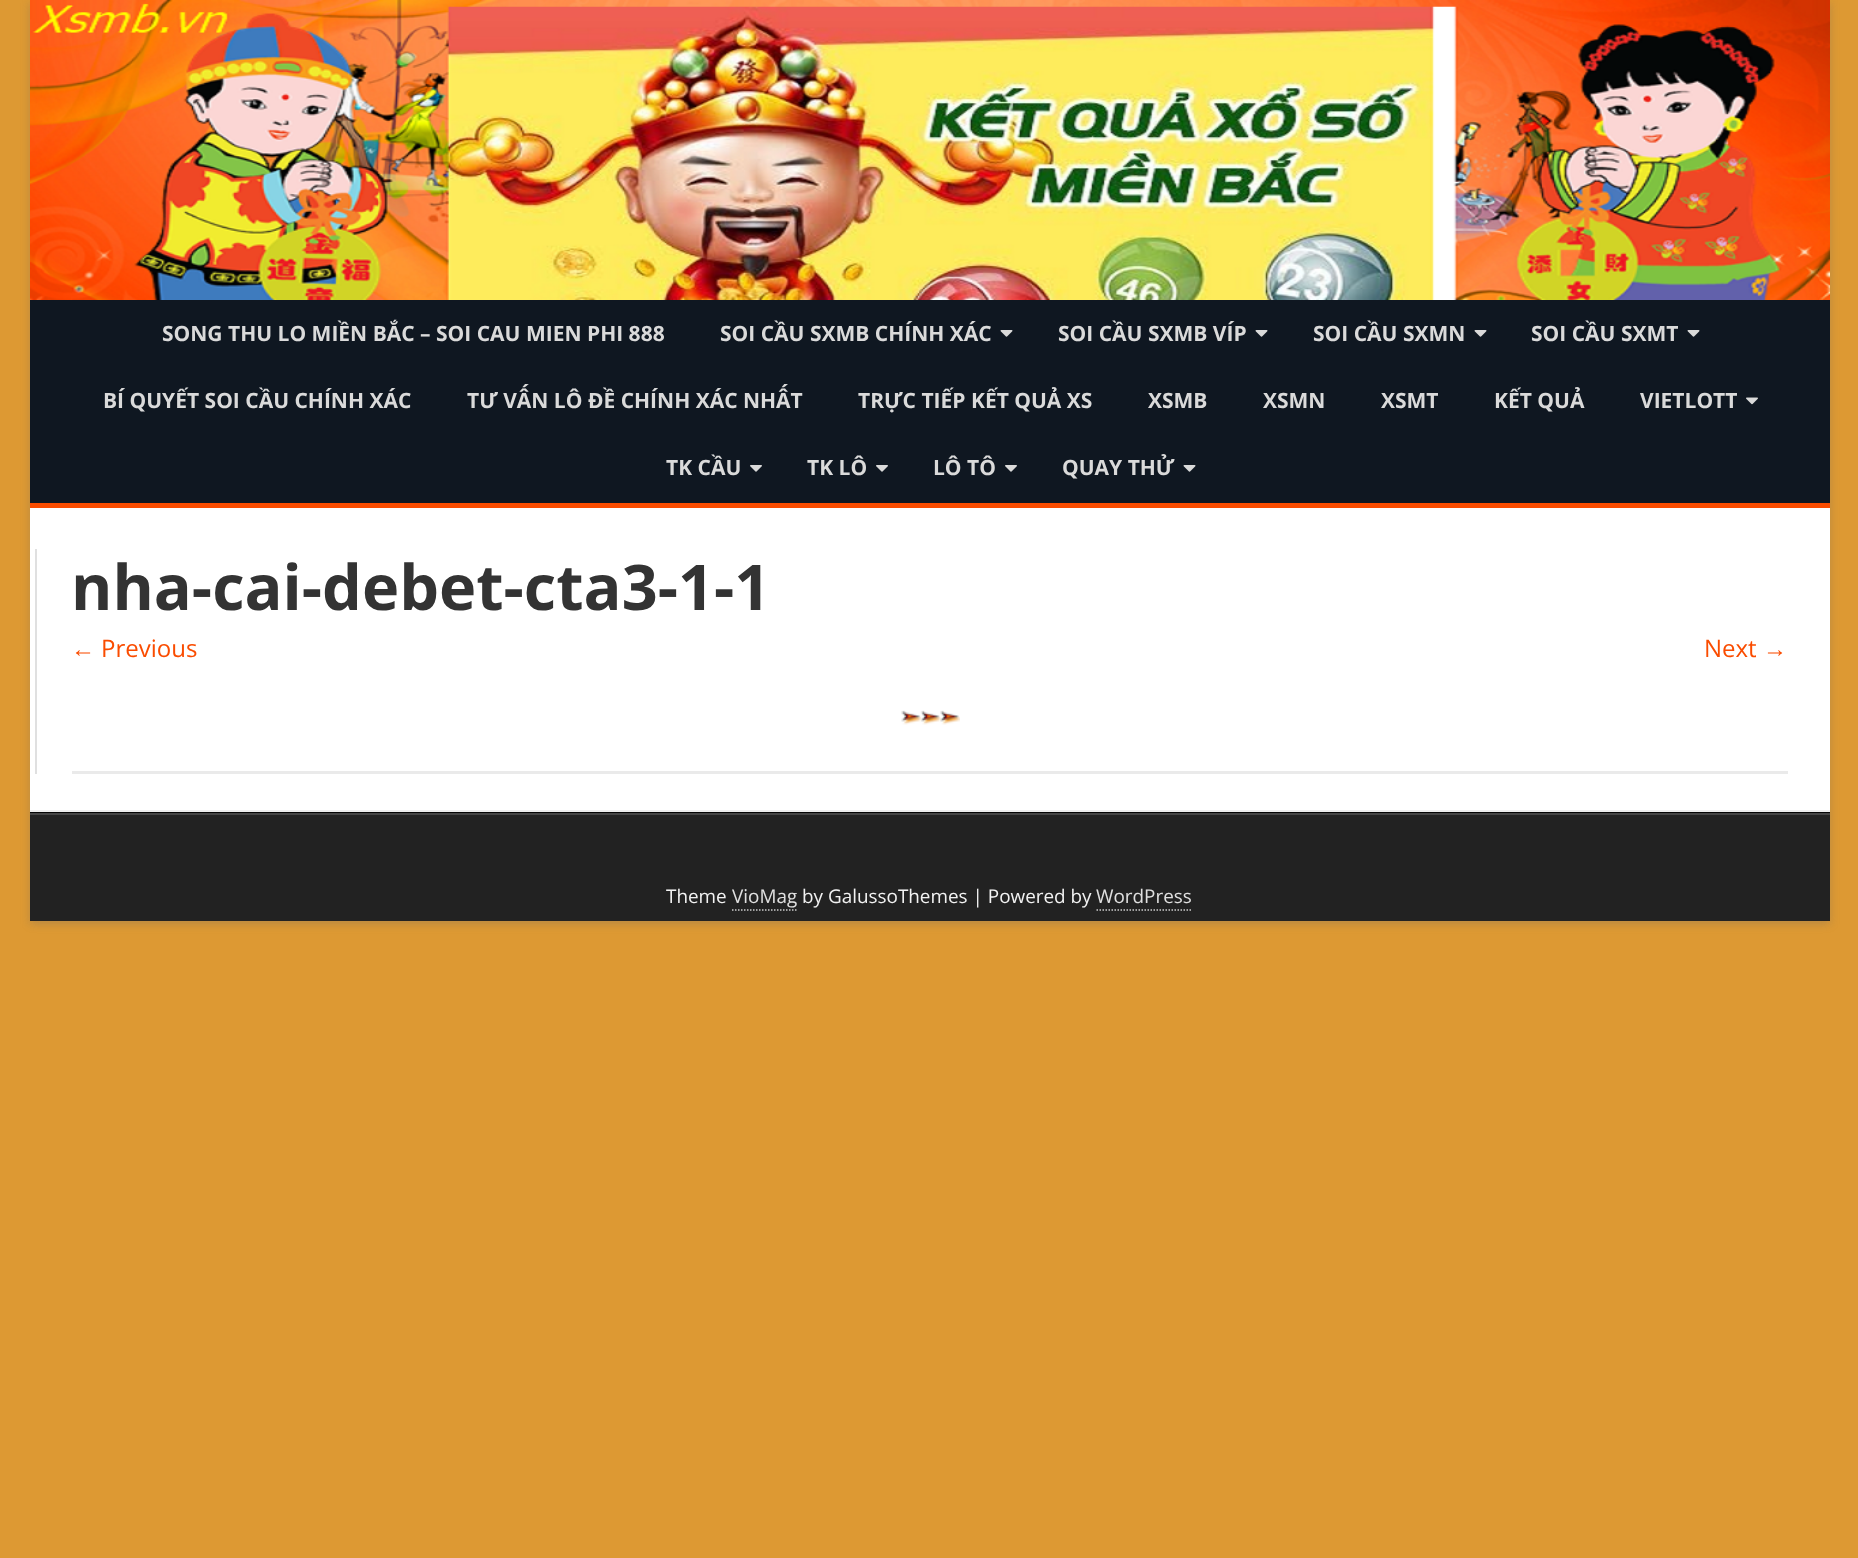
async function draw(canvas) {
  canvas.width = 1858;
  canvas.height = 1558;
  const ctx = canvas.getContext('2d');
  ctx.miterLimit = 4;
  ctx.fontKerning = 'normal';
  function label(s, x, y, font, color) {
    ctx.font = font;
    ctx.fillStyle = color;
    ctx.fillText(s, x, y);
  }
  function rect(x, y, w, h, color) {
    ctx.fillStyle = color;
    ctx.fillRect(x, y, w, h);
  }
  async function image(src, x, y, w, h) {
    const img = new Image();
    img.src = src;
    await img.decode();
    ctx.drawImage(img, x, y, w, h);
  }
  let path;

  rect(0, 0, 1858, 1558, '#d93');
  ctx.fillStyle = '#6464644d';
  ctx.filter = 'blur(4.5px)';
  ctx.beginPath();
  ctx.rect(30, 3, 1800, 921);
  ctx.fill();
  ctx.filter = 'none';
  rect(30, 508, 1800, 302, '#fff');
  await image('assets/img1.png', 30, 0, 1800, 300);
  rect(30, 300, 1800, 203, '#0f1721');
  rect(30, 503, 1800, 5, '#fa4c00');
  label('SONG THU LO MIỀN BẮC – SOI CAU MIEN PHI 888', 162, 341, 'bold 21px Open Sans', '#dadada');
  label('SOI CẦU SXMB CHÍNH XÁC', 720, 341, 'bold 21px Open Sans', '#dadada');
  await image('assets/img2.png', 1000, 330, 13, 7);
  label('SOI CẦU SXMB VÍP', 1058, 341, 'bold 21px Open Sans', '#dadada');
  await image('assets/img2.png', 1255, 330, 13, 7);
  label('SOI CẦU SXMN', 1313, 341, 'bold 21px Open Sans', '#dadada');
  await image('assets/img2.png', 1474, 330, 13, 7);
  label('SOI CẦU SXMT', 1531, 341, 'bold 21px Open Sans', '#dadada');
  await image('assets/img2.png', 1687, 330, 13, 7);
  label('BÍ QUYẾT SOI CẦU CHÍNH XÁC', 103, 408, 'bold 21px Open Sans', '#dadada');
  label('TƯ VẤN LÔ ĐỀ CHÍNH XÁC NHẤT', 467, 408, 'bold 21px Open Sans', '#dadada');
  label('TRỰC TIẾP KẾT QUẢ XS', 858, 408, 'bold 21px Open Sans', '#dadada');
  label('XSMB', 1148, 408, 'bold 21px Open Sans', '#dadada');
  label('XSMN', 1263, 408, 'bold 21px Open Sans', '#dadada');
  label('XSMT', 1381, 408, 'bold 21px Open Sans', '#dadada');
  label('KẾT QUẢ', 1494, 408, 'bold 21px Open Sans', '#dadada');
  label('VIETLOTT', 1640, 408, 'bold 21px Open Sans', '#dadada');
  await image('assets/img3.png', 1746, 397, 12, 8);
  label('TK CẦU', 666, 475, 'bold 21px Open Sans', '#dadada');
  await image('assets/img4.png', 750, 465, 12, 7);
  label('TK LÔ', 807, 475, 'bold 21px Open Sans', '#dadada');
  await image('assets/img4.png', 876, 465, 12, 7);
  label('LÔ TÔ', 933, 475, 'bold 21px Open Sans', '#dadada');
  await image('assets/img4.png', 1005, 465, 12, 7);
  label('QUAY THỬ', 1062, 475, 'bold 21px Open Sans', '#dadada');
  await image('assets/img2.png', 1183, 465, 13, 7);
  rect(35, 549, 2, 225, '#e0e0e0');
  label('nha-cai-debet-cta3-1-1', 71, 610, 'bold 63px Open Sans', '#333');
  label('←', 71, 657, '24px Liberation Sans', '#fa4c00');
  label('Previous', 101, 657, '24px Open Sans', '#fa4c00');
  label('Next', 1704, 657, '24px Open Sans', '#fa4c00');
  label('→', 1763, 657, '24px Liberation Sans', '#fa4c00');
  await image('assets/img5.png', 901, 710, 59, 15);
  rect(72, 771, 1716, 3, '#eaeaea');
  rect(30, 815, 1800, 106, '#222');
  rect(30, 810, 1800, 2, '#ededed');
  rect(30, 812, 1800, 1, '#040404');
  rect(30, 813, 1800, 2, '#444');
  label('Theme', 666, 903, '18.9px Open Sans', '#f2f2f2');
  label('VioMag', 732, 903, '18.9px Open Sans', '#e0e0e0');
  path = new Path2D('M732 910H796.5');
  ctx.strokeStyle = '#cdcdcd';
  ctx.lineWidth = 1.5;
  ctx.setLineDash([1.5, 1.5]);
  ctx.stroke(path);
  label('by GalussoThemes | Powered by', 802, 903, '18.9px Open Sans', '#f2f2f2');
  label('WordPress', 1096, 903, '18.9px Open Sans', '#e0e0e0');
  path = new Path2D('M1096.5 910H1192.5');
  ctx.stroke(path);
}

draw(document.querySelector('canvas'));
